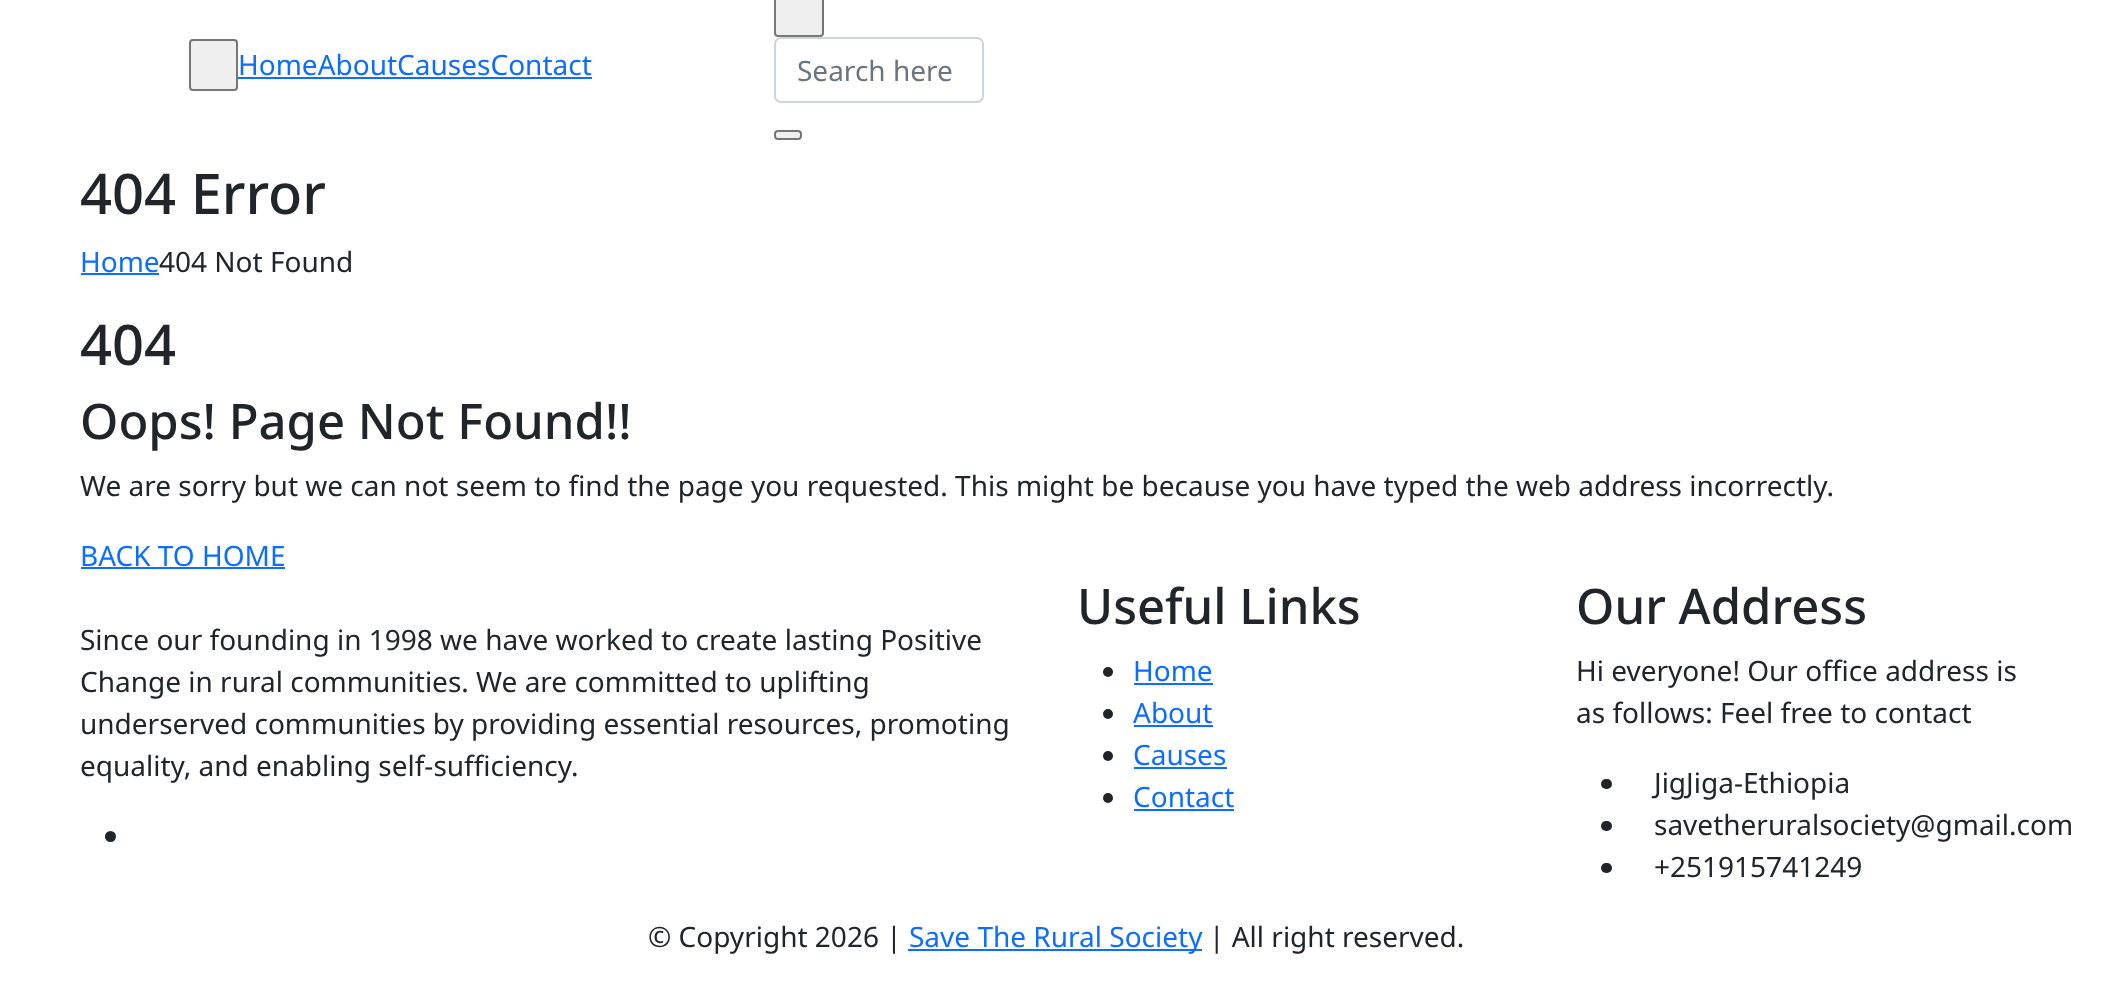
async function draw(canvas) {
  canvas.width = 2111;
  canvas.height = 985;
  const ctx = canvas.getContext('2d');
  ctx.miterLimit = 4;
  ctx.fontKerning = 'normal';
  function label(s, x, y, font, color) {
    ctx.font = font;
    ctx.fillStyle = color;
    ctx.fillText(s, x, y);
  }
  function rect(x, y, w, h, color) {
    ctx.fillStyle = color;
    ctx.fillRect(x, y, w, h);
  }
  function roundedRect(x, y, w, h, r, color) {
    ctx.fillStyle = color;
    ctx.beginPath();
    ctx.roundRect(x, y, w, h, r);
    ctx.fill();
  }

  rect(0, 0, 2111, 985, '#fff');
  ctx.fillStyle = '#efefef';
  ctx.beginPath();
  ctx.roundRect(190, 40, 47, 50, 3);
  ctx.fill();
  ctx.strokeStyle = '#767676';
  ctx.lineWidth = 2;
  ctx.stroke();
  label('HomeAboutCausesContact', 238, 75, '28px Noto Sans', '#0d6efd');
  rect(238, 77, 354, 2, '#0d6efd');
  ctx.fillStyle = '#efefef';
  ctx.beginPath();
  ctx.roundRect(775, -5, 48, 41, 3);
  ctx.fill();
  ctx.stroke();
  ctx.beginPath();
  ctx.roundRect(775, 38, 208, 64, 6);
  ctx.strokeStyle = '#ced4da';
  ctx.stroke();
  label('Search here', 797, 81, '28px Noto Sans', '#6c757d');
  ctx.fillStyle = '#efefef';
  ctx.beginPath();
  ctx.roundRect(775, 131, 26, 8, 3);
  ctx.fill();
  ctx.strokeStyle = '#767676';
  ctx.stroke();
  label('404 Error', 80, 214, '500 56px Noto Sans', '#212529');
  label('Home', 80, 272, '28px Noto Sans', '#0d6efd');
  rect(81, 273, 78, 2, '#0d6efd');
  label('404 Not Found', 159, 272, '28px Noto Sans', '#212529');
  label('404', 80, 365, '500 56px Noto Sans', '#212529');
  label('Oops! Page Not Found!!', 80, 439, '500 49px Noto Sans', '#212529');
  label('We are sorry but we can not seem to find the page you requested. This might be because you have typed the web address incorrectly.', 80, 496, '28px Noto Sans', '#212529');
  label('BACK TO HOME', 80, 566, '28px Noto Sans', '#0d6efd');
  rect(81, 567, 204, 2, '#0d6efd');
  label('Since our founding in 1998 we have worked to create lasting Positive', 80, 650, '28px Noto Sans', '#212529');
  label('Change in rural communities. We are committed to uplifting', 80, 692, '28px Noto Sans', '#212529');
  label('underserved communities by providing essential resources, promoting', 80, 734, '28px Noto Sans', '#212529');
  label('equality, and enabling self-sufficiency.', 80, 776, '28px Noto Sans', '#212529');
  ctx.beginPath();
  ctx.arc(110.5, 836.5, 5.5, 0, 2 * Math.PI);
  ctx.fill();
  label('Useful Links', 1077, 624, '500 49px Noto Sans', '#212529');
  ctx.beginPath();
  ctx.arc(1108, 672, 5, 0, 2 * Math.PI);
  ctx.fill();
  label('Home', 1133, 681, '28px Noto Sans', '#0d6efd');
  rect(1134, 683, 79, 2, '#0d6efd');
  ctx.fillStyle = '#212529';
  ctx.beginPath();
  ctx.arc(1108, 714, 5, 0, 2 * Math.PI);
  ctx.fill();
  label('About', 1133, 723, '28px Noto Sans', '#0d6efd');
  rect(1134, 725, 79, 2, '#0d6efd');
  ctx.fillStyle = '#212529';
  ctx.beginPath();
  ctx.arc(1108, 756, 5, 0, 2 * Math.PI);
  ctx.fill();
  label('Causes', 1133, 765, '28px Noto Sans', '#0d6efd');
  rect(1134, 767, 93, 2, '#0d6efd');
  ctx.fillStyle = '#212529';
  ctx.beginPath();
  ctx.arc(1108, 798, 5, 0, 2 * Math.PI);
  ctx.fill();
  label('Contact', 1133, 807, '28px Noto Sans', '#0d6efd');
  rect(1134, 809, 100, 2, '#0d6efd');
  label('Our Address', 1576, 624, '500 49px Noto Sans', '#212529');
  label('Hi everyone! Our office address is', 1576, 681, '28px Noto Sans', '#212529');
  label('as follows: Feel free to contact', 1576, 723, '28px Noto Sans', '#212529');
  roundedRect(1601, 779, 11, 10, 5, '#212529');
  label('JigJiga-Ethiopia', 1654, 793, '28px Noto Sans', '#212529');
  roundedRect(1601, 821, 11, 10, 5, '#212529');
  label('savetheruralsociety@gmail.com', 1654, 835, '28px Noto Sans', '#212529');
  roundedRect(1601, 863, 11, 10, 5, '#212529');
  label('+251915741249', 1654, 877, '28px Noto Sans', '#212529');
  label('© Copyright 2026 |', 648, 947, '28px Noto Sans', '#212529');
  rect(908, 949, 294, 2, '#0d6efd');
  label('Save The Rural Society', 909, 947, '28px Noto Sans', '#0d6efd');
  label('| All right reserved.', 1209, 947, '28px Noto Sans', '#212529');
}

draw(document.querySelector('canvas'));
